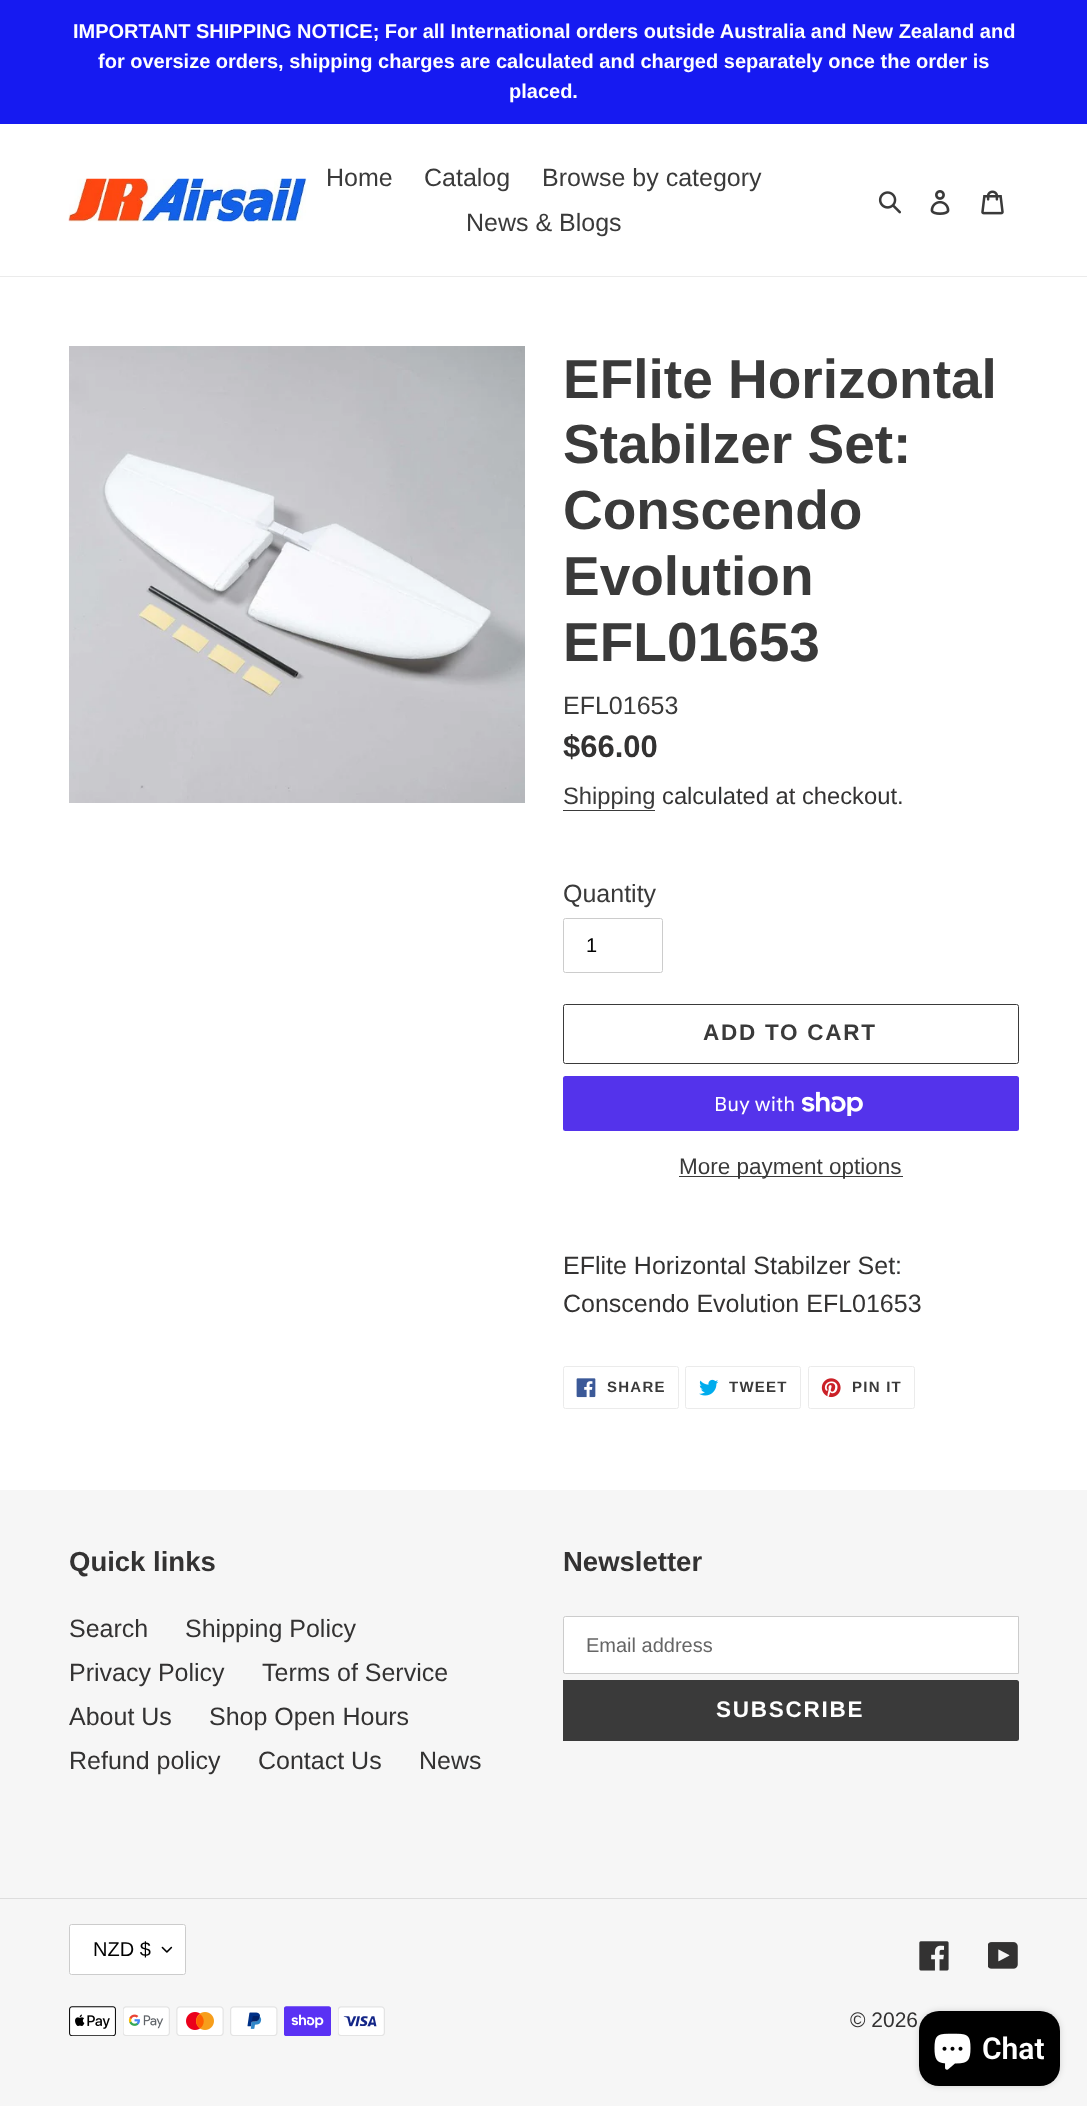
async function draw(canvas) {
  canvas.width = 1087;
  canvas.height = 2112;
  const ctx = canvas.getContext('2d');
  ctx.miterLimit = 4;
  ctx.fontKerning = 'normal';
  function label(s, x, y, font, color) {
    ctx.font = font;
    ctx.fillStyle = color;
    ctx.fillText(s, x, y);
  }
  function rect(x, y, w, h, color) {
    ctx.fillStyle = color;
    ctx.fillRect(x, y, w, h);
  }
  function roundedRect(x, y, w, h, r, color) {
    ctx.fillStyle = color;
    ctx.beginPath();
    ctx.roundRect(x, y, w, h, r);
    ctx.fill();
  }
  async function image(src, x, y, w, h) {
    const img = new Image();
    img.src = src;
    await img.decode();
    ctx.drawImage(img, x, y, w, h);
  }

  rect(0, 0, 1087, 2112, '#fff');
  rect(0, 0, 1087, 124, '#161af1');
  label('IMPORTANT SHIPPING NOTICE; For all International orders outside Australia and New Zealand and', 73, 38, 'bold 20px Liberation Sans', '#fff');
  label('for oversize orders, shipping charges are calculated and charged separately once the order is', 98, 68, 'bold 20px Liberation Sans', '#fff');
  label('placed.', 509, 98, 'bold 20px Liberation Sans', '#fff');
  rect(0, 276, 1087, 1, '#ebebeb');
  await image('assets/img1.png', 68, 178, 239, 44);
  label('Home', 326, 186, '25px Liberation Sans', '#3a3a3a');
  label('Catalog', 424, 186, '25px Liberation Sans', '#3a3a3a');
  label('Browse by category', 542, 186, '25px Liberation Sans', '#3a3a3a');
  label('News & Blogs', 466, 231, '25px Liberation Sans', '#3a3a3a');
  await image('assets/img2.png', 878, 191, 23, 23);
  await image('assets/img3.png', 930, 190, 20, 25);
  await image('assets/img4.png', 981, 190, 23, 25);
  await image('assets/img5.png', 69, 346, 456, 457);
  label('EFlite Horizontal', 563, 398, 'bold 55px Liberation Sans', '#3a3a3a');
  label('Stabilzer Set:', 563, 463, 'bold 55px Liberation Sans', '#3a3a3a');
  label('Conscendo', 563, 529, 'bold 55px Liberation Sans', '#3a3a3a');
  label('Evolution', 563, 595, 'bold 55px Liberation Sans', '#3a3a3a');
  label('EFL01653', 563, 661, 'bold 55px Liberation Sans', '#3a3a3a');
  label('EFL01653', 563, 714, '25px Liberation Sans', '#3a3a3a');
  label('$66.00', 563, 757, 'bold 31px Liberation Sans', '#333232');
  label('Shipping', 563, 804, '23.75px Liberation Sans', '#3a3a3a');
  rect(563, 810, 92, 1, '#3a3a3a');
  label('calculated at checkout.', 662, 804, '23.75px Liberation Sans', '#333232');
  label('Quantity', 563, 902, '25px Liberation Sans', '#3a3a3a');
  ctx.beginPath();
  ctx.roundRect(563.5, 918.5, 99, 54, 2);
  ctx.strokeStyle = '#ccc';
  ctx.stroke();
  label('1', 586, 952, '20px Liberation Sans', '#000');
  ctx.beginPath();
  ctx.roundRect(563.5, 1004.5, 455, 59, 2);
  ctx.strokeStyle = '#3a3a3a';
  ctx.stroke();
  ctx.letterSpacing = '1.75px';
  label('ADD TO CART', 703, 1040, 'bold 22.5px Liberation Sans', '#3a3a3a');
  roundedRect(563, 1076, 456, 55, 2.5, '#5433eb');
  ctx.letterSpacing = '0px';
  label('Buy with', 714, 1111, '20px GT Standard', '#fff');
  await image('assets/img6.png', 801, 1091, 62, 25);
  rect(679, 1176, 224, 1, '#3a3a3a');
  label('More payment options', 679, 1174, '22.5px Liberation Sans', '#3a3a3a');
  label('EFlite Horizontal Stabilzer Set:', 563, 1274, '25px Liberation Sans', '#333232');
  label('Conscendo Evolution EFL01653', 563, 1312, '25px Liberation Sans', '#333232');
  ctx.beginPath();
  ctx.roundRect(563.5, 1366.5, 115, 42, 2);
  ctx.strokeStyle = '#ebebeb';
  ctx.stroke();
  await image('assets/img7.png', 576, 1378, 20, 20);
  ctx.letterSpacing = '1.25px';
  label('SHARE', 607, 1392, 'bold 15px Liberation Sans', '#3a3a3a');
  ctx.beginPath();
  ctx.roundRect(685.5, 1366.5, 115, 42, 2);
  ctx.stroke();
  await image('assets/img8.png', 699, 1379, 20, 17);
  label('TWEET', 729, 1392, 'bold 15px Liberation Sans', '#3a3a3a');
  ctx.beginPath();
  ctx.roundRect(808.5, 1366.5, 106, 42, 2);
  ctx.stroke();
  await image('assets/img9.png', 821, 1378, 20, 20);
  label('PIN IT', 852, 1392, 'bold 15px Liberation Sans', '#3a3a3a');
  rect(0, 1490, 1087, 616, '#f6f6f6');
  ctx.letterSpacing = '0px';
  label('Quick links', 69, 1571, 'bold 27.5px Liberation Sans', '#333232');
  label('Search', 69, 1637, '25px Liberation Sans', '#333232');
  label('Shipping Policy', 185, 1637, '25px Liberation Sans', '#333232');
  label('Privacy Policy', 69, 1681, '25px Liberation Sans', '#333232');
  label('Terms of Service', 262, 1681, '25px Liberation Sans', '#333232');
  label('About Us', 69, 1725, '25px Liberation Sans', '#333232');
  label('Shop Open Hours', 209, 1725, '25px Liberation Sans', '#333232');
  label('Refund policy', 69, 1769, '25px Liberation Sans', '#333232');
  label('Contact Us', 258, 1769, '25px Liberation Sans', '#333232');
  label('News', 419, 1769, '25px Liberation Sans', '#333232');
  label('Newsletter', 563, 1571, 'bold 27.5px Liberation Sans', '#333232');
  ctx.fillStyle = '#fff';
  ctx.beginPath();
  ctx.roundRect(563.5, 1616.5, 455, 57, [2, 0, 0, 2]);
  ctx.fill();
  ctx.strokeStyle = '#ccc';
  ctx.stroke();
  label('Email address', 586, 1652, '20px Liberation Sans', '#666');
  ctx.fillStyle = '#3a3a3a';
  ctx.beginPath();
  ctx.roundRect(563, 1680, 456, 61, [0, 2.5, 2.5, 0]);
  ctx.fill();
  ctx.letterSpacing = '1.75px';
  label('SUBSCRIBE', 716, 1717, 'bold 22.5px Liberation Sans', '#fff');
  rect(0, 1898, 1087, 1, '#ddd');
  roundedRect(69, 1924, 117, 51, 2.5, '#fff');
  await image('assets/img10.png', 161, 1946, 12, 7);
  ctx.beginPath();
  ctx.roundRect(69.5, 1924.5, 116, 50, 2);
  ctx.stroke();
  ctx.letterSpacing = '0px';
  label('NZD $', 93, 1956, '20px Liberation Sans', '#000');
  await image('assets/img11.png', 919, 1941, 30, 30);
  await image('assets/img12.png', 988, 1942, 30, 27);
  await image('assets/img13.png', 69, 2006, 47, 30);
  await image('assets/img14.png', 123, 2006, 47, 30);
  await image('assets/img15.png', 176, 2006, 48, 30);
  await image('assets/img16.png', 230, 2006, 48, 30);
  await image('assets/img17.png', 284, 2006, 47, 30);
  await image('assets/img18.png', 338, 2006, 47, 30);
  label('© 2026', 850, 2027, '21px Liberation Sans', '#333232');
  ctx.fillStyle = '#00000026';
  ctx.filter = 'blur(3px)';
  ctx.beginPath();
  ctx.roundRect(919, 2011, 141, 75, 20);
  ctx.fill();
  ctx.filter = 'none';
  roundedRect(919, 2011, 141, 75, 20, '#000');
  await image('assets/img19.png', 934, 2033, 37, 37);
  label('Chat', 982, 2059, '600 30px Roboto', '#fff');
}

draw(document.querySelector('canvas'));
